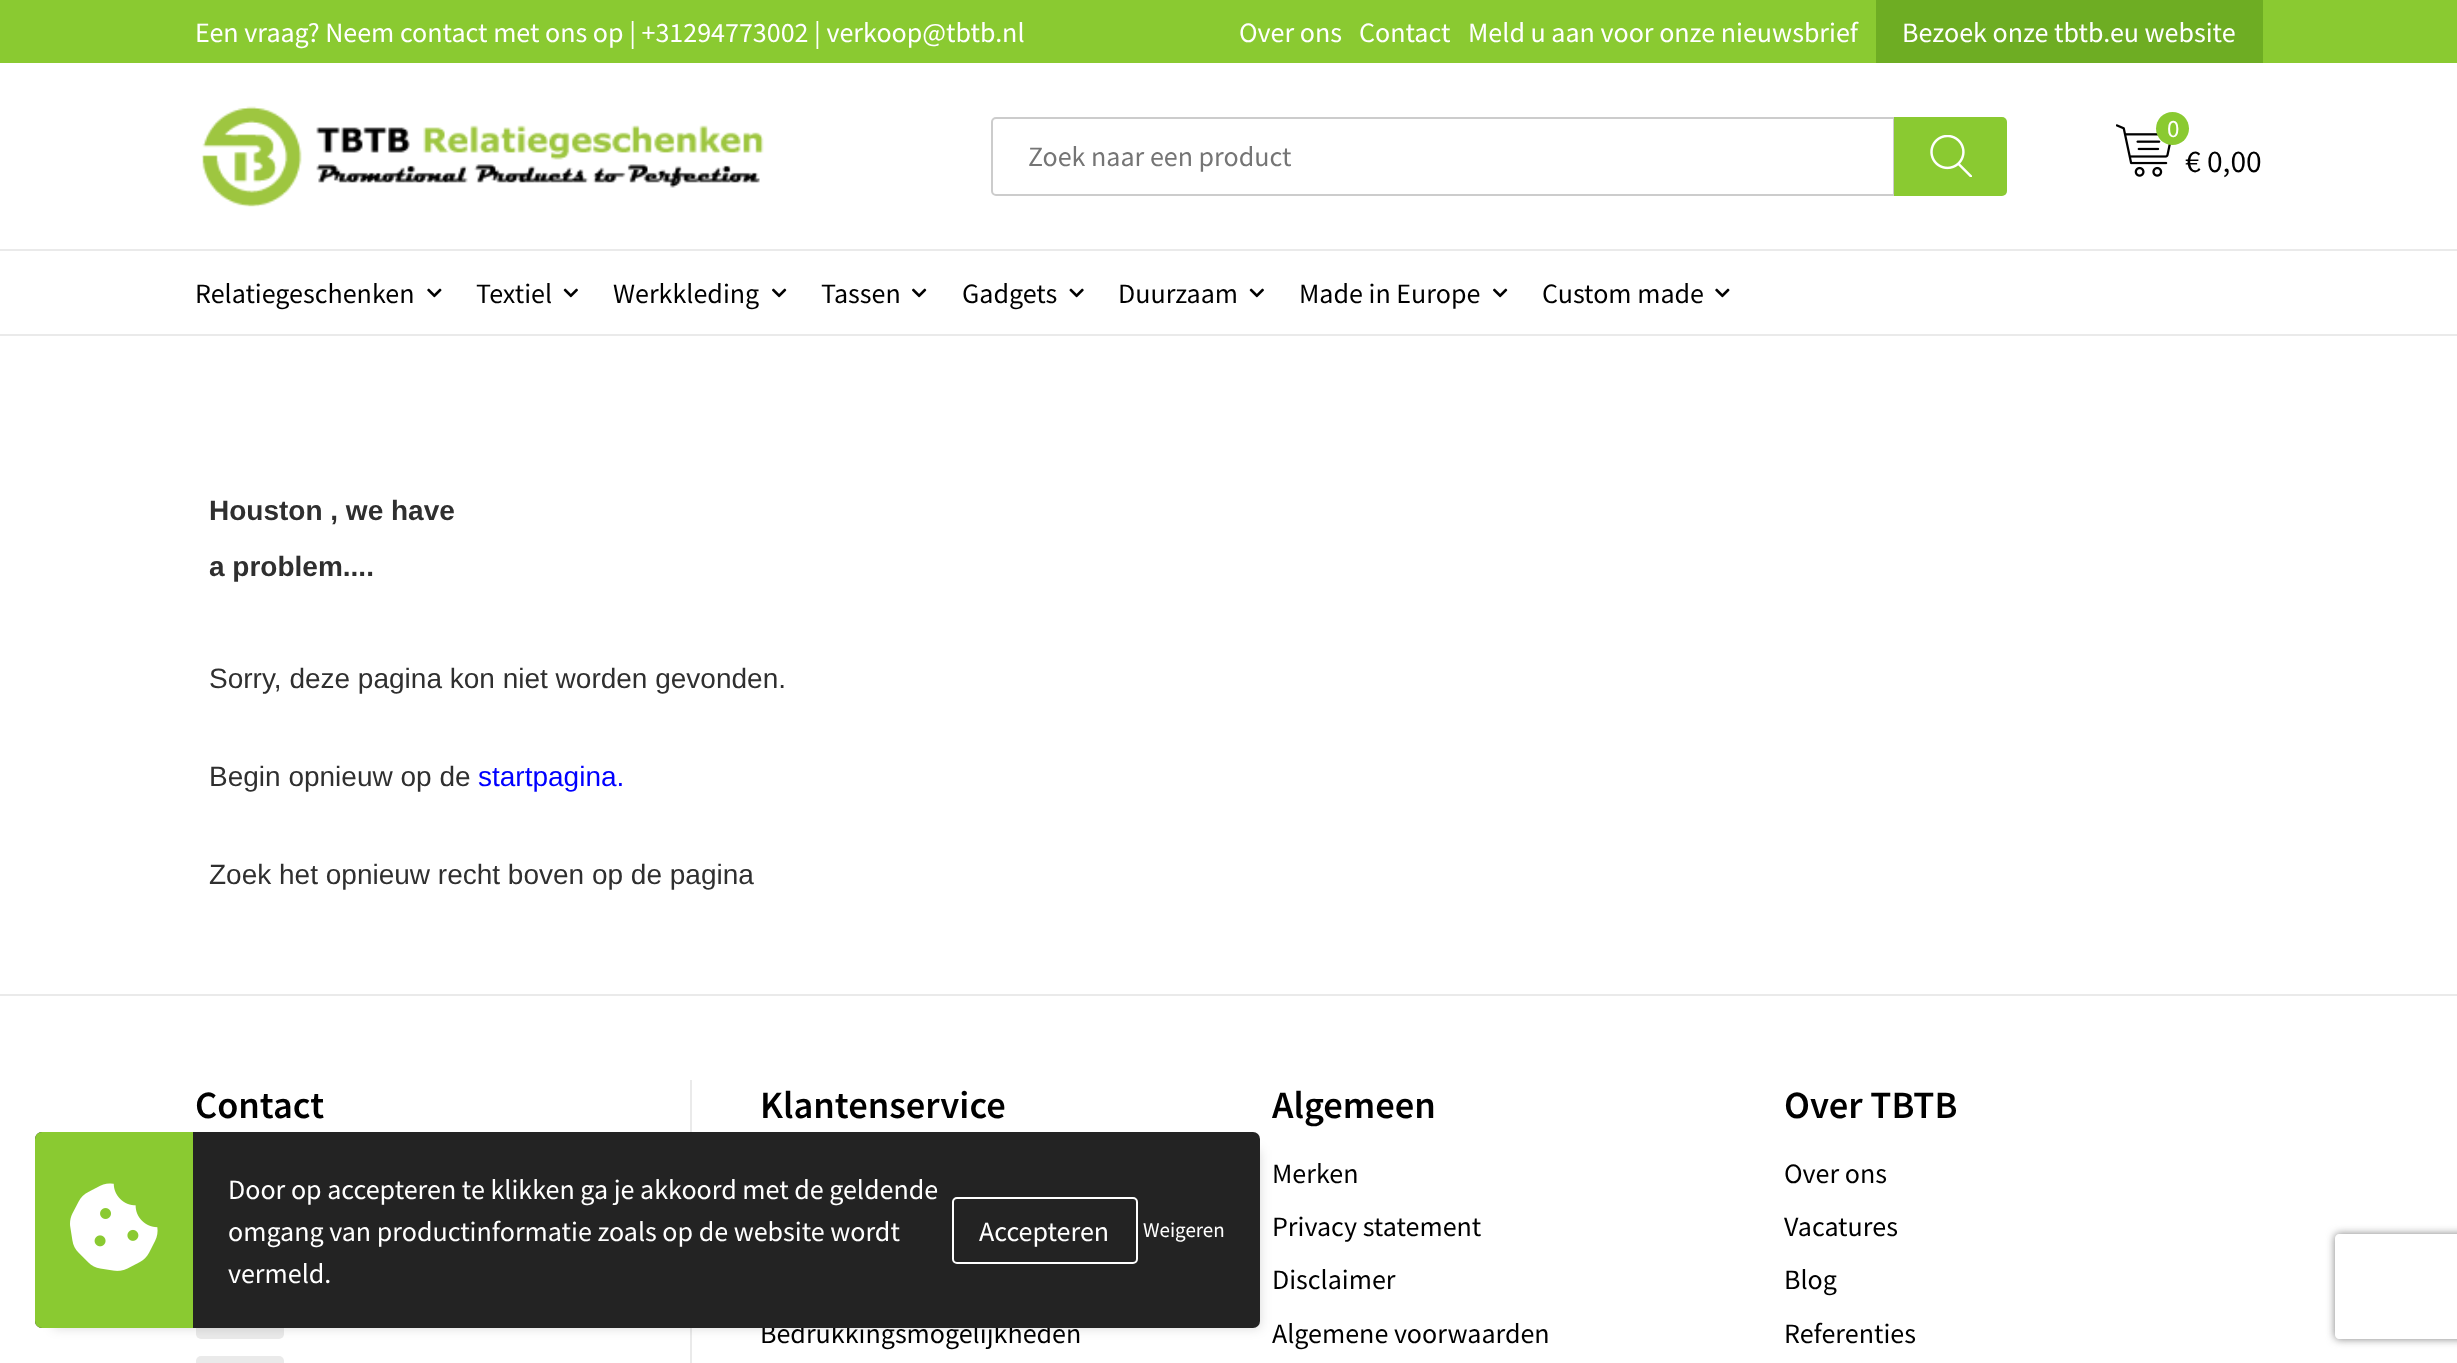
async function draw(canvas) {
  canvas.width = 2457;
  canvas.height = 1363;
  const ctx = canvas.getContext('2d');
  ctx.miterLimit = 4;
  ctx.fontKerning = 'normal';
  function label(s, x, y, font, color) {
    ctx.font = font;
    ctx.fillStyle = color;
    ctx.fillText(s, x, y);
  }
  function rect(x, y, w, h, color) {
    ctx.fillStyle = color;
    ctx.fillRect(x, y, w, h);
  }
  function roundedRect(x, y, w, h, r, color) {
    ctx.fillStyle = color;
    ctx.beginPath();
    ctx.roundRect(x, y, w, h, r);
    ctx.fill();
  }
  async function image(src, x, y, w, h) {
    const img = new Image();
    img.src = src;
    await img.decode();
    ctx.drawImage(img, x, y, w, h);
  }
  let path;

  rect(0, 0, 2457, 1363, '#fff');
  rect(0, 0, 2457, 63, '#8aca31');
  label('Een vraag? Neem contact met ons op | +31294773002 | verkoop@tbtb.nl', 195, 42, '28px Source Sans Pro', '#fff');
  label('Over ons', 1239, 42, '28px Source Sans Pro', '#fff');
  label('Contact', 1359, 42, '28px Source Sans Pro', '#fff');
  label('Meld u aan voor onze nieuwsbrief', 1468, 42, '28px Source Sans Pro', '#fff');
  rect(1876, 0, 387, 63, '#6ead23');
  label('Bezoek onze tbtb.eu website', 1902, 42, '28px Source Sans Pro', '#fff');
  await image('assets/img1.png', 201, 106, 563, 101);
  ctx.beginPath();
  ctx.roundRect(992, 118, 902, 77, [4, 0, 0, 4]);
  ctx.strokeStyle = '#ccc';
  ctx.lineWidth = 2;
  ctx.stroke();
  label('Zoek naar een product', 1028, 166, '28px Source Sans Pro', '#757575');
  ctx.fillStyle = '#8aca31';
  ctx.beginPath();
  ctx.roundRect(1894, 117, 113, 79, [0, 5, 5, 0]);
  ctx.fill();
  await image('assets/img2.png', 1930, 135, 42, 42);
  await image('assets/img3.png', 2116, 124, 55, 53);
  ctx.beginPath();
  ctx.arc(2172.5, 128.5, 16.5, 0, 2 * Math.PI);
  ctx.fill();
  label('0', 2167, 137, '25px Source Sans Pro', '#fff');
  label('€ 0,00', 2185, 172, '31.5px Source Sans Pro', '#000');
  rect(0, 249, 2457, 2, '#eaeaea');
  rect(0, 334, 2457, 2, '#eaeaea');
  label('Relatiegeschenken', 195, 303, '28px Source Sans Pro', '#000');
  await image('assets/img4.png', 427, 288, 15, 10);
  label('Textiel', 476, 303, '28px Source Sans Pro', '#000');
  await image('assets/img5.png', 563, 288, 15, 10);
  label('Werkkleding', 613, 303, '28px Source Sans Pro', '#000');
  await image('assets/img6.png', 772, 288, 15, 10);
  label('Tassen', 821, 303, '28px Source Sans Pro', '#000');
  await image('assets/img6.png', 912, 288, 15, 10);
  label('Gadgets', 962, 303, '28px Source Sans Pro', '#000');
  await image('assets/img7.png', 1069, 288, 15, 10);
  label('Duurzaam', 1118, 303, '28px Source Sans Pro', '#000');
  await image('assets/img5.png', 1249, 288, 15, 10);
  label('Made in Europe', 1299, 303, '28px Source Sans Pro', '#000');
  await image('assets/img6.png', 1493, 288, 15, 10);
  label('Custom made', 1542, 303, '28px Source Sans Pro', '#000');
  await image('assets/img4.png', 1715, 288, 15, 10);
  label('Houston , we have', 209, 520, 'bold 28px Liberation Sans', '#2f2f2f');
  label('a problem....', 209, 576, 'bold 28px Liberation Sans', '#2f2f2f');
  label('Sorry, deze pagina kon niet worden gevonden.', 209, 688, '28px Liberation Sans', '#2f2f2f');
  label('Begin opnieuw op de', 209, 786, '28px Liberation Sans', '#2f2f2f');
  label('startpagina.', 478, 786, '28px Liberation Sans', '#00f');
  label('Zoek het opnieuw recht boven op de pagina', 209, 884, '28px Liberation Sans', '#2f2f2f');
  rect(0, 994, 2457, 2, '#eaeaea');
  rect(690, 1080, 2, 283, '#eaeaea');
  label('Contact', 195, 1118, '600 38.5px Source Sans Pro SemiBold', '#000');
  roundedRect(196, 1251, 88, 88, 5, '#eaeaea');
  roundedRect(196, 1356, 88, 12, 5, '#eaeaea');
  label('Klantenservice', 760, 1118, '600 38.5px Source Sans Pro SemiBold', '#000');
  label('Bedrukkingsmogelijkheden', 760, 1343, '28px Source Sans Pro', '#000');
  label('Algemeen', 1272, 1118, '600 38.5px Source Sans Pro SemiBold', '#000');
  label('Merken', 1272, 1183, '28px Source Sans Pro', '#000');
  label('Privacy statement', 1272, 1236, '28px Source Sans Pro', '#000');
  label('Disclaimer', 1272, 1289, '28px Source Sans Pro', '#000');
  label('Algemene voorwaarden', 1272, 1343, '28px Source Sans Pro', '#000');
  label('Over TBTB', 1784, 1118, '600 38.5px Source Sans Pro SemiBold', '#000');
  label('Over ons', 1784, 1183, '28px Source Sans Pro', '#000');
  label('Vacatures', 1784, 1236, '28px Source Sans Pro', '#000');
  label('Blog', 1784, 1289, '28px Source Sans Pro', '#000');
  label('Referenties', 1784, 1343, '28px Source Sans Pro', '#000');
  ctx.fillStyle = '#00000026';
  ctx.filter = 'blur(6px)';
  ctx.beginPath();
  ctx.rect(53, 1150, 1207, 178);
  ctx.fill();
  ctx.filter = 'none';
  roundedRect(35, 1132, 1225, 196, 7, '#232323');
  ctx.fillStyle = '#8aca31';
  ctx.beginPath();
  ctx.roundRect(35, 1132, 158, 196, [7, 0, 0, 7]);
  ctx.fill();
  await image('assets/img8.png', 70, 1183, 88, 88);
  label('Door op accepteren te klikken ga je akkoord met de geldende', 228, 1199, '28px Source Sans Pro', '#fff');
  label('omgang van productinformatie zoals op de website wordt', 228, 1241, '28px Source Sans Pro', '#fff');
  ctx.beginPath();
  ctx.roundRect(953, 1198, 184, 65, 4);
  ctx.strokeStyle = '#fff';
  ctx.stroke();
  label('Accepteren', 979, 1241, '28px Source Sans Pro', '#fff');
  label('Weigeren', 1143, 1237, '21px Source Sans Pro', '#fff');
  label('vermeld.', 228, 1283, '28px Source Sans Pro', '#fff');
  ctx.save();
  path = new Path2D('M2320 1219H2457V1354H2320ZM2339 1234H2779C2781 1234 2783 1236 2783 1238V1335C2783 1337 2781 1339 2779 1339H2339C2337 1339 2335 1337 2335 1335V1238C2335 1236 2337 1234 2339 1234Z');
  ctx.clip(path, 'evenodd');
  ctx.fillStyle = '#808080';
  ctx.filter = 'blur(4.5px)';
  ctx.beginPath();
  ctx.roundRect(2335, 1234, 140, 105, 4);
  ctx.fill();
  ctx.filter = 'none';
  ctx.restore();
}

draw(document.querySelector('canvas'));
